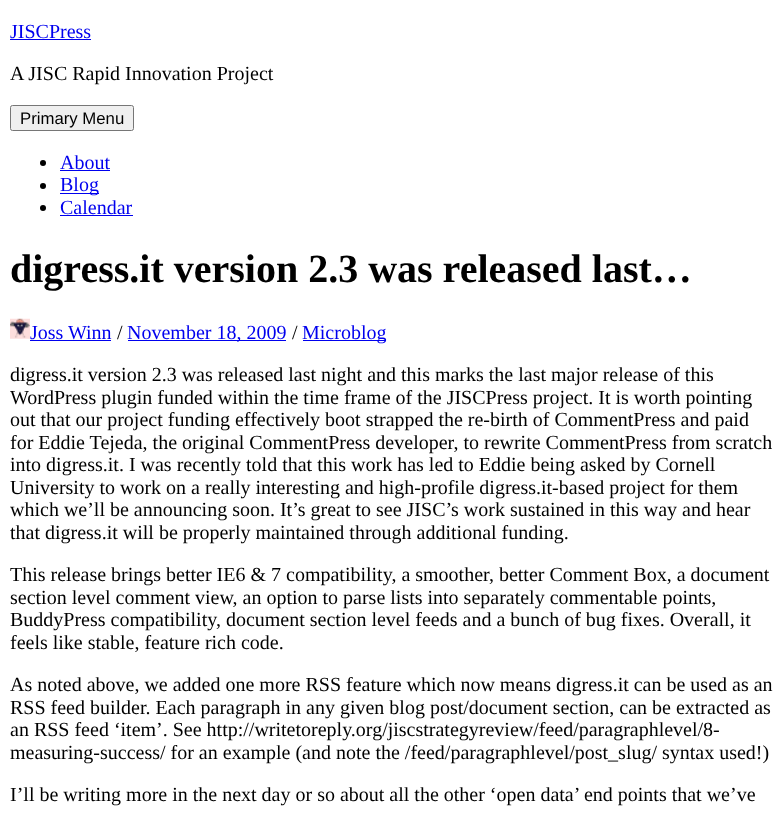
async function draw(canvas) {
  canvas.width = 784;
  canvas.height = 817;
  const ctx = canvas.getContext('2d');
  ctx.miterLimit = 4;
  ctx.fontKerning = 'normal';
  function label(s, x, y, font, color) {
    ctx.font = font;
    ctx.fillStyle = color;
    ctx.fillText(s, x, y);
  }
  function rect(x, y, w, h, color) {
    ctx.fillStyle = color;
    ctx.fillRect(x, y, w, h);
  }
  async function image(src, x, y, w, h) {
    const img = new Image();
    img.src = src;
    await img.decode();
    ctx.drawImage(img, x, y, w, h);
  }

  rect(0, 0, 784, 817, '#fff');
  label('JISCPress', 10, 38, '20px Liberation Serif', '#00e');
  rect(10, 39, 81, 1, '#00e');
  label('A JISC Rapid Innovation Project', 10, 80, '20px Liberation Serif', '#000');
  ctx.fillStyle = '#efefef';
  ctx.beginPath();
  ctx.roundRect(10.5, 105.5, 123, 25, 2);
  ctx.fill();
  ctx.strokeStyle = '#767676';
  ctx.stroke();
  label('Primary Menu', 20, 124, '16.75px Liberation Sans', '#000');
  ctx.beginPath();
  ctx.arc(43, 163, 3, 0, 2 * Math.PI);
  ctx.fill();
  label('About', 60, 169, '20px Liberation Serif', '#00e');
  rect(60, 170, 50, 1, '#00e');
  ctx.fillStyle = '#000';
  ctx.beginPath();
  ctx.arc(43, 186, 3, 0, 2 * Math.PI);
  ctx.fill();
  rect(60, 193, 39, 1, '#00e');
  label('Blog', 60, 191, '20px Liberation Serif', '#00e');
  ctx.fillStyle = '#000';
  ctx.beginPath();
  ctx.arc(43, 208, 3, 0, 2 * Math.PI);
  ctx.fill();
  label('Calendar', 60, 214, '20px Liberation Serif', '#00e');
  rect(60, 215, 73, 1, '#00e');
  label('digress.it version 2.3 was released last…', 10, 282, 'bold 40px Liberation Serif', '#000');
  await image('assets/img1.png', 10, 318, 20, 21);
  label('Joss Winn', 30, 339, '20px Liberation Serif', '#00e');
  rect(30, 340, 81, 1, '#00e');
  label('/', 117, 339, '20px Liberation Serif', '#000');
  rect(128, 340, 158, 1, '#00e');
  label('November 18, 2009', 127, 339, '20px Liberation Serif', '#00e');
  label('/', 292, 339, '20px Liberation Serif', '#000');
  rect(303, 340, 83, 1, '#00e');
  label('Microblog', 302, 339, '20px Liberation Serif', '#00e');
  label('digress.it version 2.3 was released last night and this marks the last major release of this', 10, 381, '20px Liberation Serif', '#000');
  label('WordPress plugin funded within the time frame of the JISCPress project. It is worth pointing', 10, 404, '20px Liberation Serif', '#000');
  label('out that our project funding effectively boot strapped the re-birth of CommentPress and paid', 10, 426, '20px Liberation Serif', '#000');
  label('for Eddie Tejeda, the original CommentPress developer, to rewrite CommentPress from scratch', 10, 449, '20px Liberation Serif', '#000');
  label('into digress.it. I was recently told that this work has led to Eddie being asked by Cornell', 10, 471, '20px Liberation Serif', '#000');
  label('University to work on a really interesting and high-profile digress.it-based project for them', 10, 494, '20px Liberation Serif', '#000');
  label('which we’ll be announcing soon. It’s great to see JISC’s work sustained in this way and hear', 10, 516, '20px Liberation Serif', '#000');
  label('that digress.it will be properly maintained through additional funding.', 10, 539, '20px Liberation Serif', '#000');
  label('This release brings better IE6 & 7 compatibility, a smoother, better Comment Box, a document', 10, 581, '20px Liberation Serif', '#000');
  label('section level comment view, an option to parse lists into separately commentable points,', 10, 604, '20px Liberation Serif', '#000');
  label('BuddyPress compatibility, document section level feeds and a bunch of bug fixes. Overall, it', 10, 626, '20px Liberation Serif', '#000');
  label('feels like stable, feature rich code.', 10, 649, '20px Liberation Serif', '#000');
  label('As noted above, we added one more RSS feature which now means digress.it can be used as an', 10, 691, '20px Liberation Serif', '#000');
  label('RSS feed builder. Each paragraph in any given blog post/document section, can be extracted as', 10, 714, '20px Liberation Serif', '#000');
  label('an RSS feed ‘item’. See http://writetoreply.org/jiscstrategyreview/feed/paragraphlevel/8-', 10, 736, '20px Liberation Serif', '#000');
  label('measuring-success/ for an example (and note the /feed/paragraphlevel/post_slug/ syntax used!)', 10, 759, '20px Liberation Serif', '#000');
  label('I’ll be writing more in the next day or so about all the other ‘open data’ end points that we’ve', 10, 801, '20px Liberation Serif', '#000');
}

draw(document.querySelector('canvas'));
